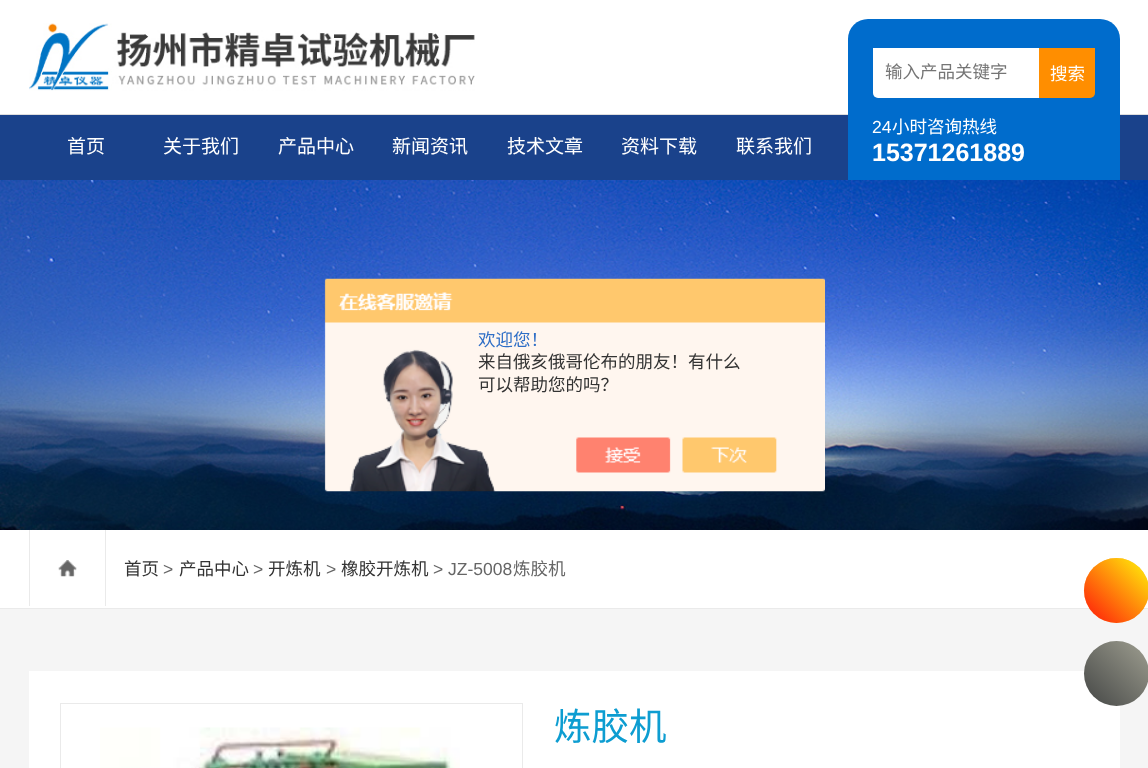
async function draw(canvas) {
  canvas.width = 1148;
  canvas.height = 768;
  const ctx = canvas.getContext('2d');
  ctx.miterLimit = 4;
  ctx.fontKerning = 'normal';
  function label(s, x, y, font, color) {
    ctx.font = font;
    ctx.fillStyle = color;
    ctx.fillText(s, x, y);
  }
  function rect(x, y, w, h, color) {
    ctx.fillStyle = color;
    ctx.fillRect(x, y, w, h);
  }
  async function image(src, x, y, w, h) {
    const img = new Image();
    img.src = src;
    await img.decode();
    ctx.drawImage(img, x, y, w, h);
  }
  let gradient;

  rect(0, 0, 1148, 768, '#fff');
  rect(0, 115, 1148, 65, '#1a428b');
  label('首页', 67, 153, '19px Noto Sans CJK SC', '#fff');
  label('关于我们', 163, 153, '19px Noto Sans CJK SC', '#fff');
  label('产品中心', 278, 153, '19px Noto Sans CJK SC', '#fff');
  label('新闻资讯', 392, 153, '19px Noto Sans CJK SC', '#fff');
  label('技术文章', 507, 153, '19px Noto Sans CJK SC', '#fff');
  label('资料下载', 621, 153, '19px Noto Sans CJK SC', '#fff');
  label('联系我们', 736, 153, '19px Noto Sans CJK SC', '#fff');
  rect(0, 114, 1148, 1, '#dedede');
  await image('assets/img1.png', 29, 23, 446, 68);
  ctx.fillStyle = '#006ccc';
  ctx.beginPath();
  ctx.roundRect(848, 19, 272, 161, [20, 20, 0, 0]);
  ctx.fill();
  ctx.fillStyle = '#fff';
  ctx.beginPath();
  ctx.roundRect(873, 48, 166, 50, [0, 0, 0, 5]);
  ctx.fill();
  label('输入产品关键字', 885, 78, '17.5px Noto Sans CJK SC', '#757575');
  ctx.fillStyle = '#ff8e00';
  ctx.beginPath();
  ctx.roundRect(1039, 48, 56, 50, [0, 0, 5, 0]);
  ctx.fill();
  label('搜索', 1050, 80, '17.5px Noto Sans CJK SC', '#fff');
  label('24', 872, 133, '17.5px Liberation Sans', '#fff');
  label('小时咨询热线', 892, 133, '17.5px Noto Sans CJK SC', '#fff');
  label('15371261889', 872, 161, 'bold 25px Liberation Sans', '#fff');
  await image('assets/img2.png', 0, 180, 1148, 350);
  await image('assets/img3.png', 324, 278, 501, 214);
  label('欢迎您！', 478, 346, '17.5px Noto Sans CJK SC', '#2e6ec6');
  label('来自俄亥俄哥伦布的朋友！有什么', 478, 368, '17.5px Noto Sans CJK SC', '#333');
  label('可以帮助您的吗？', 478, 391, '17.5px Noto Sans CJK SC', '#333');
  rect(0, 609, 1148, 159, '#f5f5f5');
  rect(0, 608, 1148, 1, '#eaeaea');
  await image('assets/img4.png', 58, 560, 19, 17);
  rect(105, 530, 1, 76, '#eaeaea');
  rect(29, 530, 1, 76, '#eaeaea');
  label('首页', 124, 575, '17.5px Noto Sans CJK SC', '#333');
  label('>', 163, 575, '17.5px Liberation Sans', '#666');
  label('产品中心', 179, 575, '17.5px Noto Sans CJK SC', '#333');
  label('>', 253, 575, '17.5px Liberation Sans', '#666');
  label('开炼机', 268, 575, '17.5px Noto Sans CJK SC', '#333');
  label('>', 326, 575, '17.5px Liberation Sans', '#666');
  label('橡胶开炼机', 341, 575, '17.5px Noto Sans CJK SC', '#333');
  label('> JZ-5008', 433, 575, '17.5px Liberation Sans', '#666');
  label('炼胶机', 513, 575, '17.5px Noto Sans CJK SC', '#666');
  rect(29, 671, 1091, 97, '#fff');
  ctx.strokeStyle = '#eaeaea';
  ctx.strokeRect(60.5, 703.5, 462, 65);
  await image('assets/img5.png', 100, 727, 360, 41);
  label('炼胶机', 554, 740, '37.5px Noto Sans CJK SC', '#0d9dd1');
  ctx.fillStyle = '#feb65be6';
  ctx.beginPath();
  ctx.arc(1116.5, 590.5, 32.5, 0, 2 * Math.PI);
  ctx.fill();
  gradient = ctx.createLinearGradient(1084, 623, 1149, 558);
  gradient.addColorStop(0, '#ff0000e6');
  gradient.addColorStop(1, '#ffff00e6');
  ctx.fillStyle = gradient;
  ctx.beginPath();
  ctx.arc(1116.5, 590.5, 32.5, 0, 2 * Math.PI);
  ctx.fill();
  gradient = ctx.createLinearGradient(1084, 706, 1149, 641);
  gradient.addColorStop(0, '#444645');
  gradient.addColorStop(1, '#9f9f91');
  ctx.fillStyle = gradient;
  ctx.beginPath();
  ctx.arc(1116.5, 673.5, 32.5, 0, 2 * Math.PI);
  ctx.fill();
}

draw(document.querySelector('canvas'));
